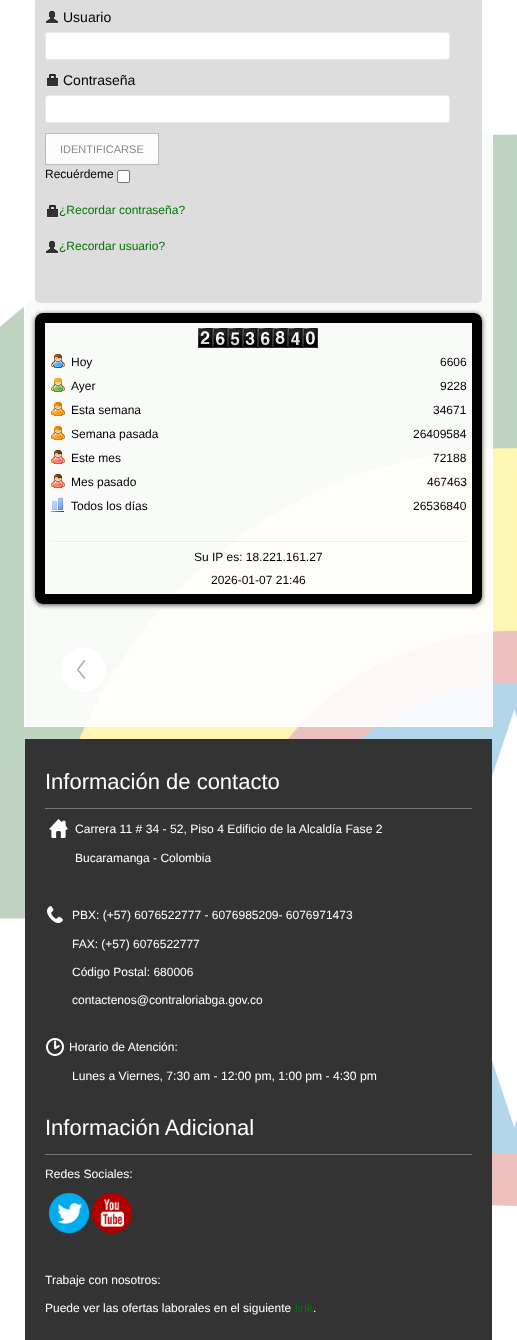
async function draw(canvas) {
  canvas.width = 517;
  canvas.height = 1340;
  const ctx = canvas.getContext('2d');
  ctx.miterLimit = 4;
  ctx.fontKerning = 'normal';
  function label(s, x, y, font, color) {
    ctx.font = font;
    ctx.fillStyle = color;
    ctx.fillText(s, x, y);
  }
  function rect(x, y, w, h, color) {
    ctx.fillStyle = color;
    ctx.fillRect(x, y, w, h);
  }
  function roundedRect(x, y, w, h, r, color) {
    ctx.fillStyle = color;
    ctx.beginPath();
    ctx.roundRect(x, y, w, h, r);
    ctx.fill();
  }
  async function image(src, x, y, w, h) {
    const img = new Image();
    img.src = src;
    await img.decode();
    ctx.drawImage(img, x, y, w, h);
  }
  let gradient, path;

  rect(0, 0, 517, 1340, '#fff');
  await image('assets/img1.png', 0, 134, 517, 1072);
  rect(25, 134, 467, 592, '#ffffffe6');
  ctx.strokeStyle = '#fff';
  ctx.strokeRect(24.5, -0.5, 468, 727);
  roundedRect(35, -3, 447, 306, 5, '#ddd');
  await image('assets/img2.png', 46, 11, 12, 13);
  label('Usuario', 63, 22, '14px Liberation Sans', '#000');
  ctx.fillStyle = '#fff';
  ctx.beginPath();
  ctx.roundRect(45.5, 32.5, 404, 27, 2.5);
  ctx.fill();
  ctx.strokeStyle = '#eaeaea';
  ctx.stroke();
  await image('assets/img3.png', 47, 74, 11, 13);
  label('Contraseña', 63, 85, '14px Liberation Sans', '#000');
  ctx.fillStyle = '#fff';
  ctx.beginPath();
  ctx.roundRect(45.5, 95.5, 404, 27, 2.5);
  ctx.fill();
  ctx.stroke();
  gradient = ctx.createLinearGradient(102, 133, 102, 165);
  gradient.addColorStop(0, '#fff');
  gradient.addColorStop(1, '#fafafa');
  ctx.fillStyle = gradient;
  ctx.fillRect(46, 134, 112, 30);
  ctx.strokeStyle = '#bbb';
  ctx.strokeRect(45.5, 133.5, 113, 31);
  label('IDENTIFICARSE', 60, 153, '11px Liberation Sans', '#888');
  label('Recuérdeme', 45, 178, '12px Liberation Sans', '#000');
  ctx.fillStyle = '#fff';
  ctx.beginPath();
  ctx.roundRect(117.5, 170.5, 12, 12, 1.5);
  ctx.fill();
  ctx.strokeStyle = '#767676';
  ctx.stroke();
  await image('assets/img3.png', 47, 205, 11, 13);
  label('¿Recordar contraseña?', 59, 214, '12px Liberation Sans', '#070');
  await image('assets/img2.png', 46, 241, 12, 13);
  label('¿Recordar usuario?', 59, 250, '12px Liberation Sans', '#070');
  ctx.save();
  path = new Path2D('M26 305H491V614H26ZM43 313H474C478.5 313 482 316.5 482 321V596C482 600.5 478.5 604 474 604H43C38.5 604 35 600.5 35 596V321C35 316.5 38.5 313 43 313Z');
  ctx.clip(path, 'evenodd');
  ctx.fillStyle = '#4a4a4a';
  ctx.filter = 'blur(2.5px)';
  ctx.beginPath();
  ctx.roundRect(35, 314, 447, 291, 8);
  ctx.fill();
  ctx.filter = 'none';
  ctx.restore();
  ctx.beginPath();
  ctx.roundRect(40, 318, 437, 281, 3);
  ctx.strokeStyle = '#000';
  ctx.lineWidth = 10;
  ctx.stroke();
  await image('assets/img4.png', 198, 328, 15, 20);
  await image('assets/img5.png', 213, 328, 15, 20);
  await image('assets/img6.png', 228, 328, 15, 20);
  await image('assets/img7.png', 243, 328, 15, 20);
  await image('assets/img5.png', 258, 328, 15, 20);
  await image('assets/img8.png', 273, 328, 15, 20);
  await image('assets/img9.png', 288, 328, 15, 20);
  await image('assets/img10.png', 303, 328, 15, 20);
  await image('assets/img11.png', 51, 354, 14, 14);
  await image('assets/img12.png', 51, 378, 14, 14);
  await image('assets/img13.png', 51, 402, 14, 14);
  await image('assets/img13.png', 51, 426, 14, 14);
  await image('assets/img14.png', 51, 450, 14, 14);
  await image('assets/img14.png', 51, 474, 14, 14);
  await image('assets/img15.png', 51, 498, 13, 14);
  label('Hoy', 71, 366, '12px Liberation Sans', '#000');
  label('Ayer', 71, 390, '12px Liberation Sans', '#000');
  label('Esta semana', 71, 414, '12px Liberation Sans', '#000');
  label('Semana pasada', 71, 438, '12px Liberation Sans', '#000');
  label('Este mes', 71, 462, '12px Liberation Sans', '#000');
  label('Mes pasado', 71, 486, '12px Liberation Sans', '#000');
  label('Todos los días', 71, 510, '12px Liberation Sans', '#000');
  label('6606', 440, 366, '12px Liberation Sans', '#000');
  label('9228', 440, 390, '12px Liberation Sans', '#000');
  label('34671', 433, 414, '12px Liberation Sans', '#000');
  label('26409584', 413, 438, '12px Liberation Sans', '#000');
  label('72188', 433, 462, '12px Liberation Sans', '#000');
  label('467463', 427, 486, '12px Liberation Sans', '#000');
  label('26536840', 413, 510, '12px Liberation Sans', '#000');
  rect(50, 541, 417, 1, '#eee');
  rect(50, 542, 417, 1, '#fff');
  label('Su IP es: 18.221.161.27', 194, 561, '12px Liberation Sans', '#000');
  label('2026-01-07 21:46', 211, 584, '12px Liberation Sans', '#000');
  await image('assets/img16.png', 61, 648, 44, 44);
  rect(25, 739, 467, 601, '#333');
  rect(45, 808, 427, 1, '#777');
  label('Información de contacto', 45, 789, '22px Liberation Sans', '#fff');
  await image('assets/img17.png', 49, 819, 19, 19);
  label('Carrera 11 # 34 - 52, Piso 4 Edificio de la Alcaldía Fase 2', 75, 833, '12.15px Liberation Sans', '#fff');
  label('Bucaramanga - Colombia', 75, 862, '12px Liberation Sans', '#fff');
  await image('assets/img18.png', 47, 906, 16, 17);
  label('PBX: (+57) 6076522777 - 6076985209- 6076971473', 72, 919, '12px Liberation Sans', '#fff');
  label('FAX: (+57) 6076522777', 72, 948, '12px Liberation Sans', '#fff');
  label('Código Postal: 680006', 72, 976, '12px Liberation Sans', '#fff');
  label('contactenos@contraloriabga.gov.co', 72, 1004, '12px Liberation Sans', '#fff');
  await image('assets/img19.png', 46, 1038, 18, 18);
  label('Horario de Atención:', 69, 1051, '12px Liberation Sans', '#fff');
  label('Lunes a Viernes, 7:30 am - 12:00 pm, 1:00 pm - 4:30 pm', 72, 1080, '12.15px Liberation Sans', '#fff');
  rect(45, 1154, 427, 1, '#777');
  label('Información Adicional', 45, 1135, '22px Liberation Sans', '#fff');
  label('Redes Sociales:', 45, 1178, '12.15px Liberation Sans', '#fff');
  await image('assets/img20.png', 49, 1193, 40, 40);
  await image('assets/img21.png', 92, 1193, 40, 40);
  label('Trabaje con nosotros:', 45, 1284, '12px Liberation Sans', '#fff');
  label('Puede ver las ofertas laborales en el siguiente', 45, 1312, '12px Liberation Sans', '#fff');
  label('link', 295, 1312, '12px Liberation Sans', '#070');
  label('.', 313, 1312, '12px Liberation Sans', '#fff');
}

draw(document.querySelector('canvas'));
